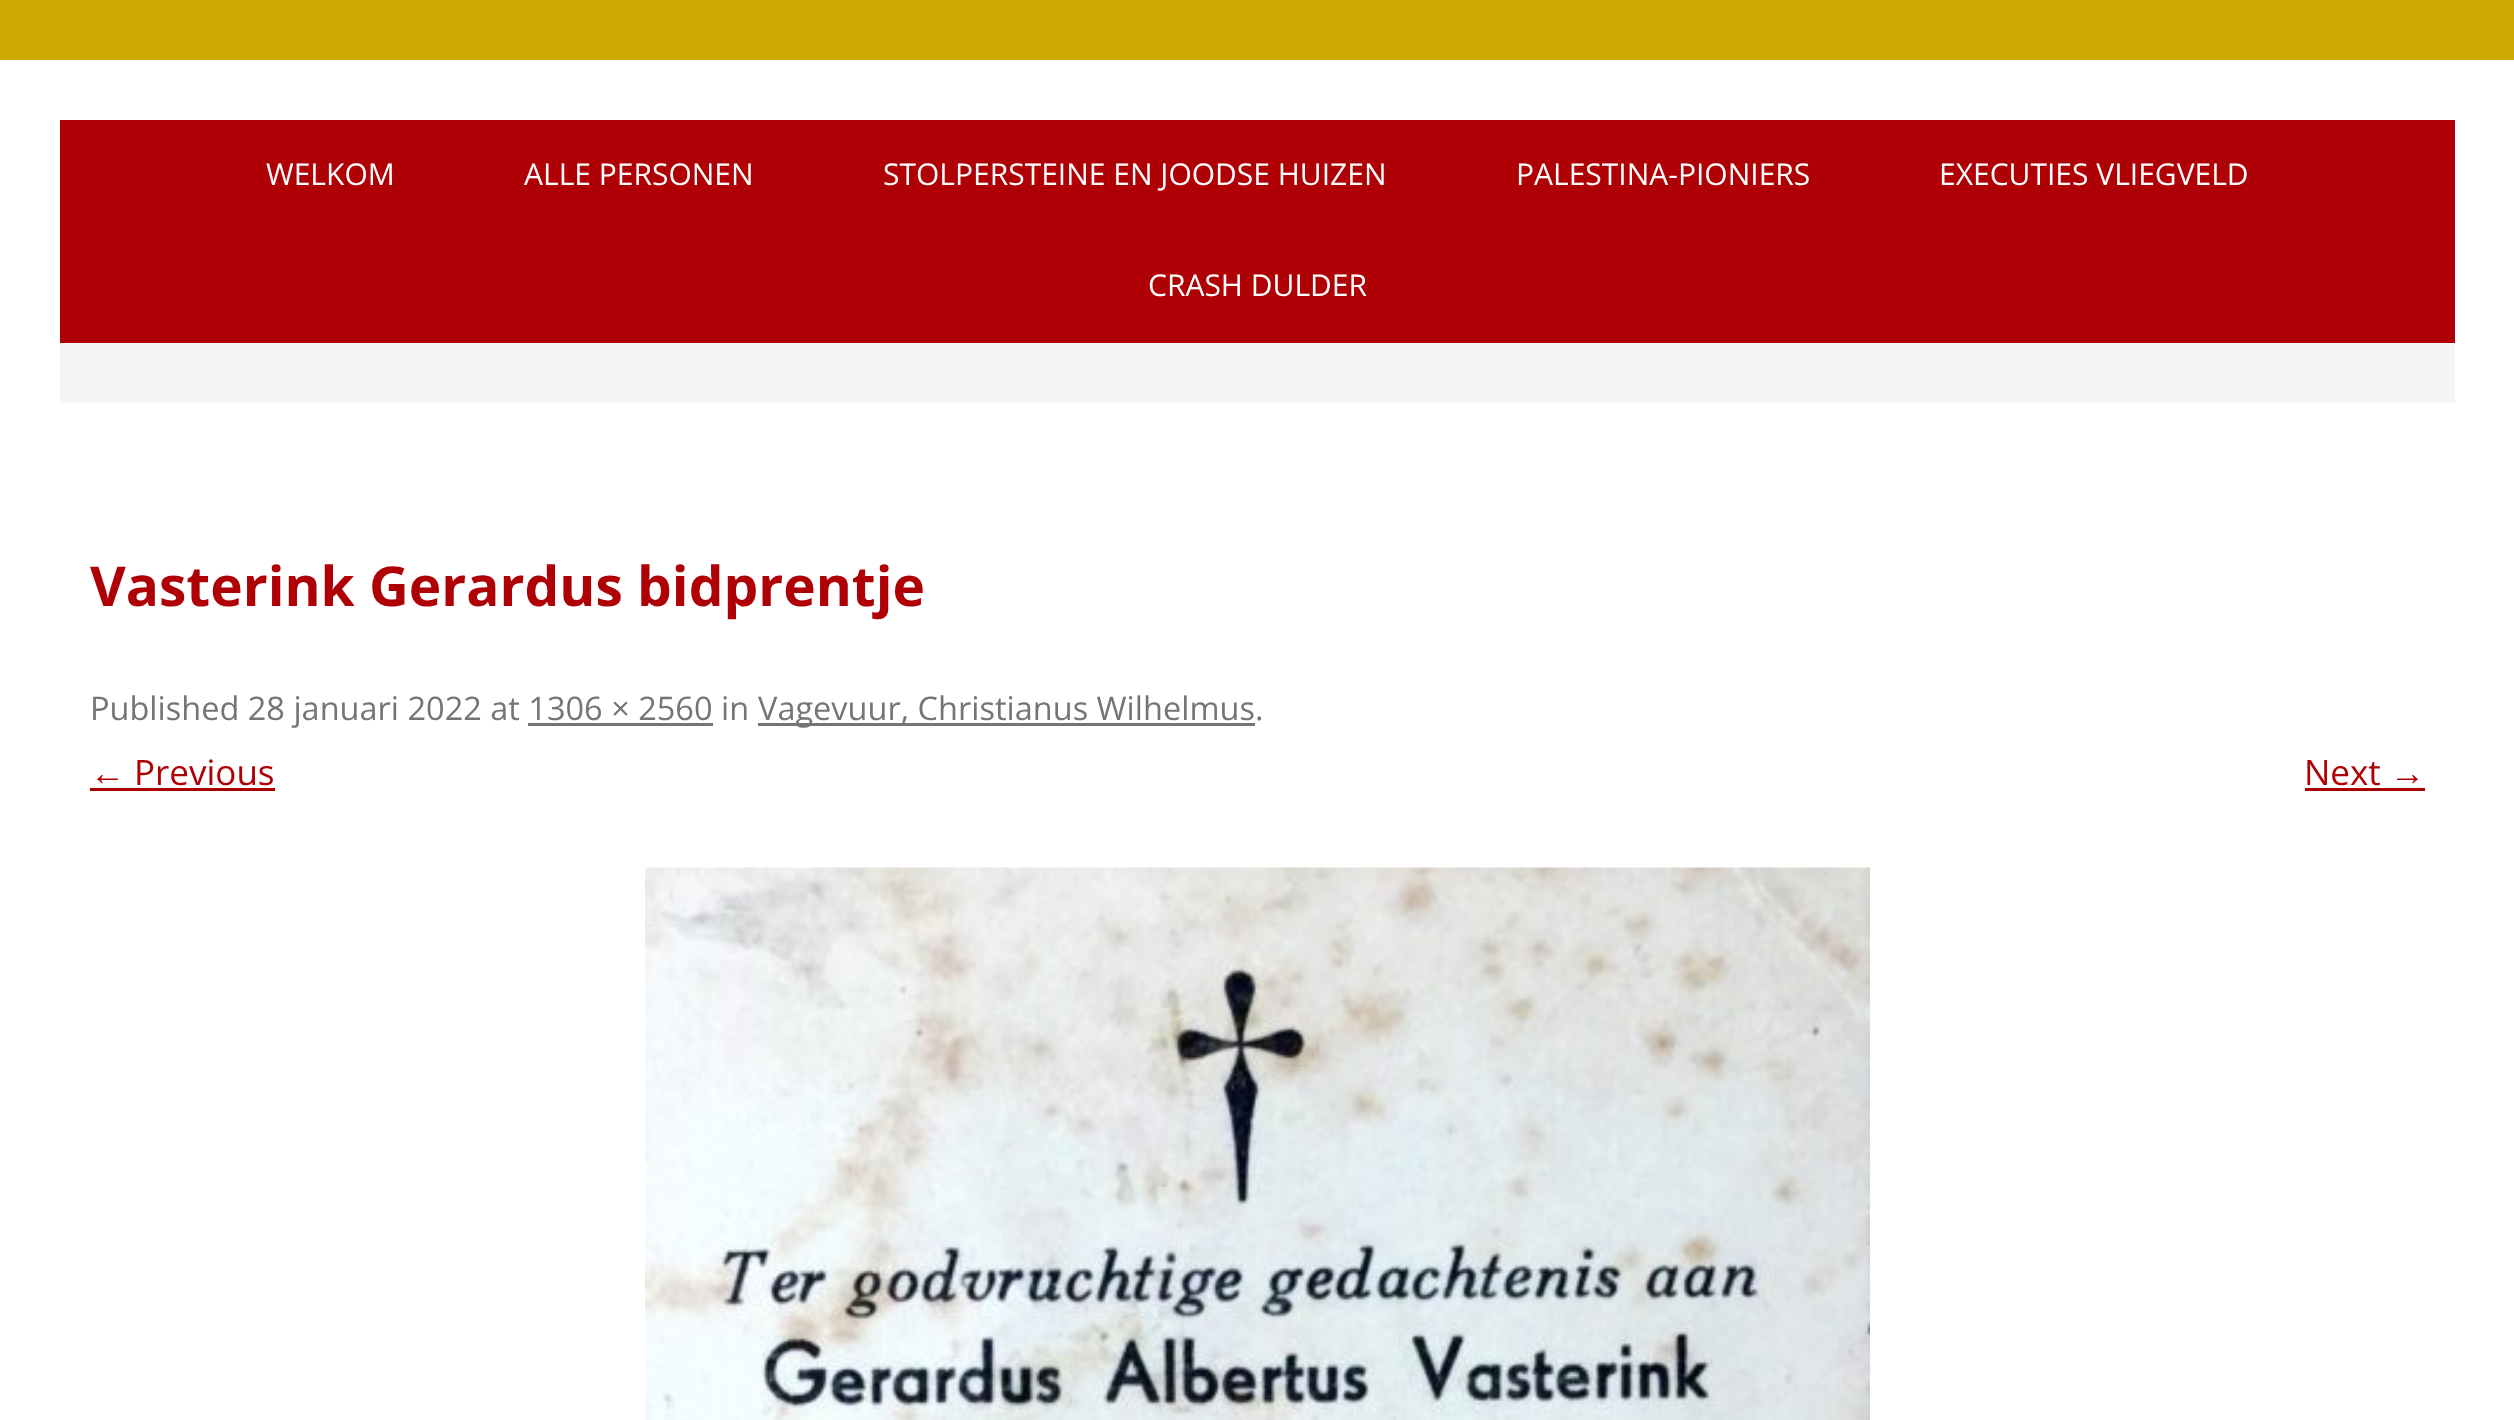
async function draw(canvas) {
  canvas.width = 2514;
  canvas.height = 1420;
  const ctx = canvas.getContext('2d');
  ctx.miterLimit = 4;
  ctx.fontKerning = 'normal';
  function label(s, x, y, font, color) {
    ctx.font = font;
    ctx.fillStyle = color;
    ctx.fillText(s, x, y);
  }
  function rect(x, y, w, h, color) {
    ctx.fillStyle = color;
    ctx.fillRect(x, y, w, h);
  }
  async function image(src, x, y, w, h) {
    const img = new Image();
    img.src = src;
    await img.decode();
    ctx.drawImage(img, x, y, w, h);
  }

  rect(0, 0, 2514, 1420, '#fff');
  await image('assets/img1.png', 0, 0, 2514, 60);
  rect(60, 120, 2395, 223, '#af0105');
  label('WELKOM', 266, 185, '30px Open Sans', '#fff');
  label('ALLE PERSONEN', 524, 185, '30px Open Sans', '#fff');
  label('STOLPERSTEINE EN JOODSE HUIZEN', 883, 185, '30px Open Sans', '#fff');
  label('PALESTINA-PIONIERS', 1516, 185, '30px Open Sans', '#fff');
  label('EXECUTIES VLIEGVELD', 1939, 185, '30px Open Sans', '#fff');
  label('CRASH DULDER', 1148, 296, '30px Open Sans', '#fff');
  rect(60, 343, 2395, 60, '#f5f5f5');
  label('Vasterink Gerardus bidprentje', 90, 606, 'bold 55px Open Sans', '#af0105');
  label('Published 28 januari 2022 at 1306 × 2560 in', 90, 720, '32.5px Open Sans', '#757575');
  rect(758, 723, 497, 3, '#757575');
  label('Vagevuur, Christianus Wilhelmus.', 758, 720, '32.5px Open Sans', '#757575');
  rect(528, 723, 185, 3, '#757575');
  label('←', 90, 785, '35px Liberation Sans', '#af0105');
  rect(90, 788, 185, 3, '#a00');
  label('Previous', 134, 785, '35px Open Sans', '#af0105');
  label('Next', 2304, 785, '35px Open Sans', '#af0105');
  label('→', 2390, 785, '35px Liberation Sans', '#af0105');
  rect(2305, 788, 120, 3, '#a00');
  await image('assets/img2.png', 645, 867, 1225, 553);
}

draw(document.querySelector('canvas'));
